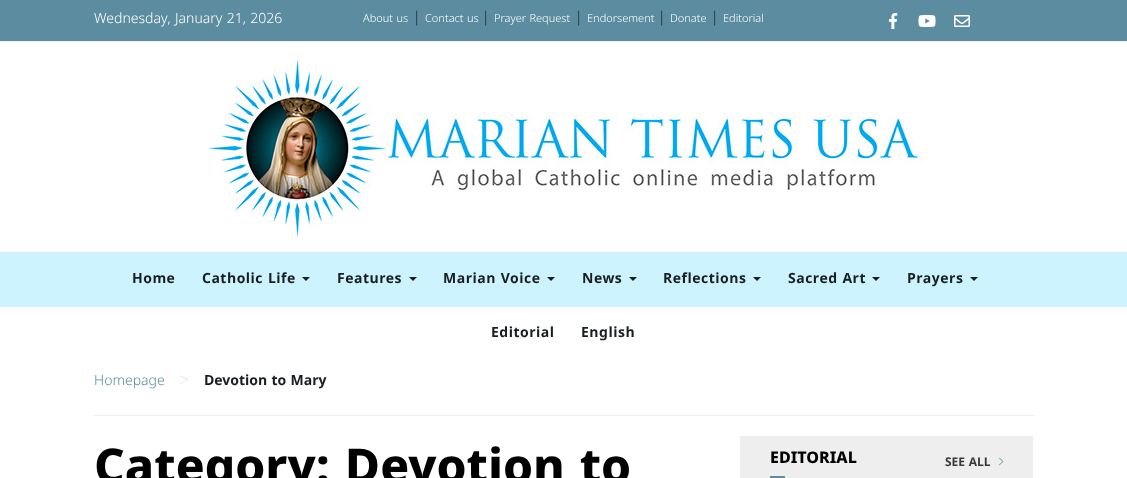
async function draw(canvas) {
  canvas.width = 1127;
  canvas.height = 478;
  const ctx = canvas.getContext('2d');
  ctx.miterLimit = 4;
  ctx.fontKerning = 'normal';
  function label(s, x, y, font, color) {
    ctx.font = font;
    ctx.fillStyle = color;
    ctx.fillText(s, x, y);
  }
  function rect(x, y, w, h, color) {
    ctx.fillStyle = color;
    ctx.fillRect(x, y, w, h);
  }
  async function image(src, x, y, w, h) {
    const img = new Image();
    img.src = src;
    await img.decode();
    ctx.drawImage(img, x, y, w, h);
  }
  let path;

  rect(0, 0, 1127, 478, '#fff');
  rect(0, 0, 1127, 41, '#5b8c9f');
  rect(0, 41, 1127, 1, '#eee');
  label('Wednesday, January 21, 2026', 94, 23, '300 14px Noto Sans Malayalam', '#fff');
  label('About us', 363, 22, '300 11px Noto Sans Malayalam', '#fff');
  label('|', 413, 22, '300 14px Noto Sans Malayalam', '#191e21');
  label('Contact us', 425, 22, '300 11px Noto Sans Malayalam', '#fff');
  label('|', 482, 22, '300 14px Noto Sans Malayalam', '#191e21');
  label('Prayer Request', 494, 22, '300 11px Noto Sans Malayalam', '#fff');
  label('|', 575, 22, '300 14px Noto Sans Malayalam', '#191e21');
  label('Endorsement', 587, 22, '300 11px Noto Sans Malayalam', '#fff');
  label('|', 658, 22, '300 14px Noto Sans Malayalam', '#191e21');
  label('Donate', 670, 22, '300 11px Noto Sans Malayalam', '#fff');
  label('|', 711, 22, '300 14px Noto Sans Malayalam', '#191e21');
  label('Editorial', 723, 22, '300 11px Noto Sans Malayalam', '#fff');
  await image('assets/img1.png', 889, 13, 9, 16);
  await image('assets/img2.png', 918, 15, 18, 12);
  await image('assets/img3.png', 954, 15, 16, 12);
  await image('assets/img4.png', 204, 60, 720, 177);
  rect(0, 252, 1127, 55, '#cdf3ff');
  ctx.letterSpacing = '0.5px';
  label('Home', 132, 283, 'bold 14px Noto Sans Malayalam', '#191e21');
  label('Catholic Life', 202, 283, 'bold 14px Noto Sans Malayalam', '#191e21');
  path = new Path2D('M302 277H310L306 281Z');
  ctx.fill(path);
  label('Features', 337, 283, 'bold 14px Noto Sans Malayalam', '#191e21');
  path = new Path2D('M409 277H417L413 281Z');
  ctx.fill(path);
  label('Marian Voice', 443, 283, 'bold 14px Noto Sans Malayalam', '#191e21');
  path = new Path2D('M547 277H555L551 281Z');
  ctx.fill(path);
  label('News', 582, 283, 'bold 14px Noto Sans Malayalam', '#191e21');
  path = new Path2D('M629 277H637L633 281Z');
  ctx.fill(path);
  label('Reflections', 663, 283, 'bold 14px Noto Sans Malayalam', '#191e21');
  path = new Path2D('M753 277H761L757 281Z');
  ctx.fill(path);
  label('Sacred Art', 788, 283, 'bold 14px Noto Sans Malayalam', '#191e21');
  path = new Path2D('M872 277H880L876 281Z');
  ctx.fill(path);
  label('Prayers', 907, 283, 'bold 14px Noto Sans Malayalam', '#191e21');
  path = new Path2D('M970 277H978L974 281Z');
  ctx.fill(path);
  label('Editorial', 491, 337, 'bold 14px Noto Sans Malayalam', '#191e21');
  label('English', 581, 337, 'bold 14px Noto Sans Malayalam', '#191e21');
  rect(94, 415, 940, 1, '#eee');
  ctx.letterSpacing = '0px';
  label('Homepage', 94, 385, '300 14px Noto Sans Malayalam', '#5b8c9f');
  label('>', 179, 386, '100 18px Noto Sans Malayalam', '#ccc');
  label('Devotion to Mary', 204, 385, 'bold 14px Noto Sans Malayalam', '#191e21');
  label('Category: Devotion to', 94, 483, '800 48px Noto Sans Malayalam', '#000');
  rect(740, 436, 293, 42, '#eee');
  label('EDITORIAL', 770, 463, '800 16px Noto Sans Malayalam', '#000');
  label('SEE ALL', 945, 466, 'bold 12px Noto Sans Malayalam', '#383838');
  await image('assets/img5.png', 999, 457, 5, 9);
  rect(770, 476, 15, 2, '#5b8c9f');
}

draw(document.querySelector('canvas'));
